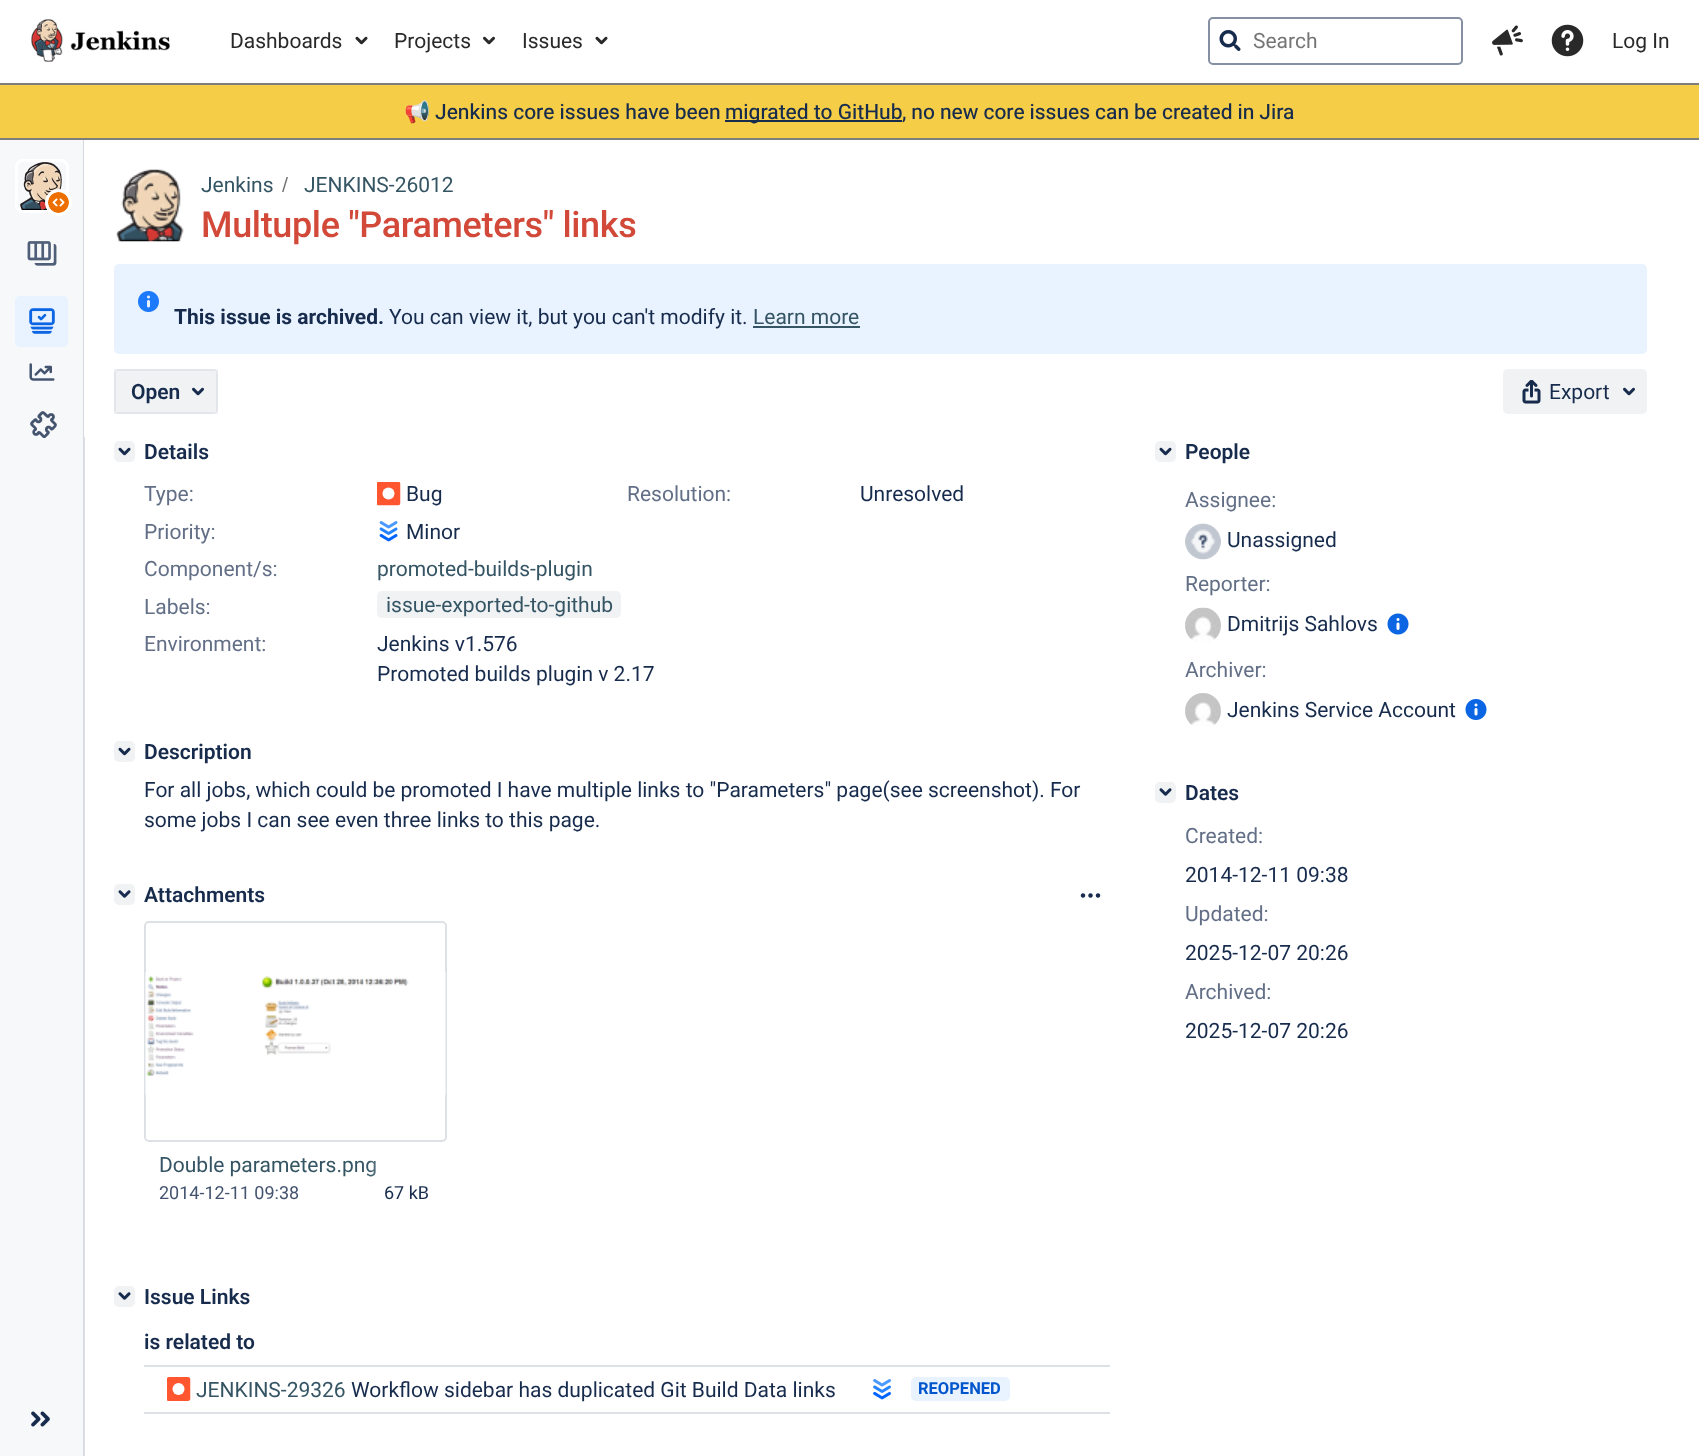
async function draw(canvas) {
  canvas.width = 1699;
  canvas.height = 1456;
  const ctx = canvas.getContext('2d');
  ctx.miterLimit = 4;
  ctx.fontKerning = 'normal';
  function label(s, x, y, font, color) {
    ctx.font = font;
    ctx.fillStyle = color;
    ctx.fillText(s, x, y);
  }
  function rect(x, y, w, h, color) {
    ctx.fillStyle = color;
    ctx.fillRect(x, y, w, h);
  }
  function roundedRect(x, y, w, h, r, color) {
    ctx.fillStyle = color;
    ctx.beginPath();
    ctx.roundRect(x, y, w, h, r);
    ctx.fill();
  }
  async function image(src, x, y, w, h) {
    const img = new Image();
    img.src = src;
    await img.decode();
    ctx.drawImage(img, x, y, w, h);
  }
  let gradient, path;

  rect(0, 0, 1699, 1456, '#fff');
  rect(84, 437, 1, 1019, '#dddfe5');
  rect(0, 83, 1699, 2, '#7d7d7d');
  await image('assets/img1.png', 31, 19, 139, 43);
  label('Dashboards', 230, 48, '21px "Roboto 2"', '#292929');
  await image('assets/img2.png', 355, 36, 13, 9);
  label('Projects', 394, 48, '21px "Roboto 2"', '#292929');
  await image('assets/img3.png', 483, 36, 12, 9);
  label('Issues', 522, 48, '21px "Roboto 2"', '#292929');
  await image('assets/img2.png', 595, 36, 13, 9);
  ctx.beginPath();
  ctx.roundRect(1209, 18, 253, 46, 4);
  ctx.strokeStyle = '#8590a2';
  ctx.lineWidth = 2;
  ctx.stroke();
  await image('assets/img4.png', 1219, 30, 22, 21);
  label('Search', 1253, 48, '21px "Roboto 2"', '#757575');
  await image('assets/img5.png', 1492, 25, 31, 31);
  await image('assets/img6.png', 1551, 24, 33, 33);
  label('Log In', 1612, 48, '21px "Roboto 2"', '#292929');
  rect(0, 85, 1699, 53, '#f5cd47');
  rect(0, 138, 1699, 2, '#7d7d7d');
  label('📢', 404, 119, '21px Noto Color Emoji', '#172b4d');
  label('Jenkins core issues have been', 435, 119, '21px Roboto', '#172b4d');
  rect(725, 120, 177, 2, '#172b4d');
  label('migrated to GitHub', 725, 119, '21px Roboto', '#172b4d');
  ctx.wordSpacing = '-0.25px';
  label(', no new core issues can be created in Jira', 902, 119, '21px Roboto', '#172b4d');
  rect(0, 140, 83, 1316, '#f7f8f9');
  rect(83, 140, 1, 1316, '#d6d9df');
  ctx.beginPath();
  ctx.roundRect(16.5, 160.5, 51, 51, 6.5);
  ctx.strokeStyle = '#fff';
  ctx.lineWidth = 3;
  ctx.stroke();
  await image('assets/img7.png', 20, 162, 42, 48);
  ctx.fillStyle = '#fff';
  ctx.beginPath();
  ctx.arc(58.5, 202.5, 13.5, 0, 2 * Math.PI);
  ctx.fill();
  await image('assets/img8.png', 48, 192, 21, 21);
  await image('assets/img9.png', 27, 241, 30, 25);
  roundedRect(15, 296, 53, 51, 5, '#e9f2ff');
  await image('assets/img10.png', 29, 308, 26, 26);
  await image('assets/img11.png', 29, 363, 26, 18);
  await image('assets/img12.png', 30, 411, 27, 27);
  await image('assets/img13.png', 31, 1411, 19, 16);
  await image('assets/img14.png', 116, 169, 68, 73);
  ctx.wordSpacing = '0px';
  label('Jenkins', 201, 192, '21px "Roboto 2"', '#355564');
  ctx.fillStyle = '#707070';
  path = new Path2D('M283.5 192L288 177H286.5L282 192Z');
  ctx.fill(path);
  label('JENKINS-26012', 304, 192, '21px "Roboto 2"', '#355564');
  ctx.letterSpacing = '-0.35px';
  label('Multuple "Parameters" links', 201, 237, '500 36px Roboto', '#d24939');
  roundedRect(114, 264, 1533, 90, 5, '#e9f2ff');
  await image('assets/img15.png', 138, 291, 21, 21);
  ctx.letterSpacing = '0px';
  label('This issue is archived.', 174, 324, 'bold 21px Roboto', '#172b4d');
  label('You can view it, but you can\'t modify it.', 389, 324, '21px "Roboto 2"', '#172b4d');
  label('Learn more', 753, 324, '21px "Roboto 2"', '#355564');
  rect(753, 326, 107, 2, '#355564');
  roundedRect(114, 369, 104, 45, 5, '#f0f2f4');
  ctx.strokeStyle = '#091e420f';
  ctx.lineWidth = 2;
  ctx.strokeRect(115, 370, 102, 43);
  label('Open', 131, 399, '600 21px Roboto', '#172b4d');
  await image('assets/img16.png', 192, 387, 12, 9);
  roundedRect(1503, 369, 144, 45, 5, '#f0f2f4');
  await image('assets/img17.png', 1522, 380, 19, 24);
  label('Export', 1549, 399, '21px "Roboto 2"', '#172b4d');
  await image('assets/img16.png', 1623, 387, 12, 9);
  roundedRect(114, 441, 21, 21, 5, '#f0f2f4');
  await image('assets/img18.png', 118, 447, 13, 9);
  label('Details', 144, 459, '600 21px Roboto', '#172b4d');
  label('Type:', 144, 501, '21px "Roboto 2"', '#626f86');
  await image('assets/img19.png', 377, 482, 24, 24);
  label('Bug', 406, 501, '21px "Roboto 2"', '#172b4d');
  label('Resolution:', 627, 501, '21px "Roboto 2"', '#626f86');
  label('Unresolved', 860, 501, '21px "Roboto 2"', '#172b4d');
  label('Priority:', 144, 539, '21px "Roboto 2"', '#626f86');
  await image('assets/img20.png', 379, 521, 19, 21);
  label('Minor', 406, 539, '21px "Roboto 2"', '#172b4d');
  label('Component/s:', 144, 576, '21px "Roboto 2"', '#626f86');
  label('promoted-builds-plugin', 377, 576, '21px "Roboto 2"', '#355564');
  label('Labels:', 144, 614, '21px "Roboto 2"', '#626f86');
  roundedRect(377, 591, 244, 27, 5, '#f0f2f4');
  label('issue-exported-to-github', 386, 612, '21px "Roboto 2"', '#355564');
  label('Environment:', 144, 651, '21px "Roboto 2"', '#626f86');
  label('Jenkins v1.576', 377, 651, '21px "Roboto 2"', '#172b4d');
  label('Promoted builds plugin v 2.17', 377, 681, '21px "Roboto 2"', '#172b4d');
  roundedRect(114, 741, 21, 21, 5, '#f0f2f4');
  await image('assets/img18.png', 118, 747, 13, 9);
  label('Description', 144, 759, '600 21px Roboto', '#172b4d');
  label('For all jobs, which could be promoted I have multiple links to "Parameters" page(see screenshot). For', 144, 797, '21px "Roboto 2"', '#172b4d');
  label('some jobs I can see even three links to this page.', 144, 827, '21px "Roboto 2"', '#172b4d');
  roundedRect(114, 884, 21, 21, 5, '#f0f2f4');
  await image('assets/img21.png', 118, 890, 13, 8);
  label('Attachments', 144, 902, '600 21px Roboto', '#172b4d');
  await image('assets/img22.png', 1080, 893, 21, 5);
  ctx.beginPath();
  ctx.roundRect(145, 922, 301, 219, 4);
  ctx.strokeStyle = '#dde0e5';
  ctx.stroke();
  await image('assets/img23.png', 145, 972, 301, 123);
  label('Double parameters.png', 159, 1172, '21px "Roboto 2"', '#355564');
  gradient = ctx.createLinearGradient(366, 1165, 429, 1165);
  gradient.addColorStop(0, '#ffffff00');
  gradient.addColorStop(1, '#fff');
  ctx.fillStyle = gradient;
  ctx.fillRect(367, 1160, 9, 17);
  label('2014-12-11 09:38', 159, 1199, '18px "Roboto 2"', '#44546f');
  label('67 kB', 384, 1199, '18px "Roboto 2"', '#172b4d');
  roundedRect(114, 1286, 21, 21, 5, '#f0f2f4');
  await image('assets/img21.png', 118, 1292, 13, 8);
  label('Issue Links', 144, 1304, '600 21px Roboto', '#172b4d');
  label('is related to', 144, 1349, '600 21px Roboto', '#172b4d');
  rect(144, 1365, 966, 2, '#dde0e5');
  rect(144, 1412, 966, 2, '#dde0e5');
  await image('assets/img24.png', 167, 1377, 24, 24);
  label('JENKINS-29326', 196, 1397, '21px "Roboto 2"', '#355564');
  label('Workflow sidebar has duplicated Git Build Data links', 351, 1397, '21px "Roboto 2"', '#172b4d');
  await image('assets/img25.png', 873, 1379, 18, 21);
  roundedRect(911, 1377, 99, 24, 5, '#e9f2ff');
  label('REOPENED', 918, 1394, 'bold 16.5px Roboto', '#05c');
  roundedRect(1155, 441, 21, 21, 5, '#f0f2f4');
  await image('assets/img18.png', 1159, 447, 13, 9);
  label('People', 1185, 459, '600 21px Roboto', '#172b4d');
  label('Assignee:', 1185, 507, '21px "Roboto 2"', '#626f86');
  await image('assets/img26.png', 1185, 523, 36, 37);
  label('Unassigned', 1227, 547, '21px "Roboto 2"', '#172b4d');
  label('Reporter:', 1185, 591, '21px "Roboto 2"', '#626f86');
  await image('assets/img27.png', 1185, 607, 36, 35);
  label('Dmitrijs Sahlovs', 1227, 631, '21px "Roboto 2"', '#172b4d');
  await image('assets/img28.png', 1387, 613, 22, 22);
  label('Archiver:', 1185, 677, '21px "Roboto 2"', '#626f86');
  await image('assets/img29.png', 1185, 693, 36, 33);
  label('Jenkins Service Account', 1227, 717, '21px "Roboto 2"', '#172b4d');
  await image('assets/img30.png', 1465, 699, 22, 21);
  roundedRect(1155, 782, 21, 21, 5, '#f0f2f4');
  await image('assets/img21.png', 1159, 788, 13, 8);
  label('Dates', 1185, 800, '600 21px Roboto', '#172b4d');
  label('Created:', 1185, 843, '21px "Roboto 2"', '#626f86');
  label('2014-12-11 09:38', 1185, 882, '21px "Roboto 2"', '#172b4d');
  label('Updated:', 1185, 921, '21px "Roboto 2"', '#626f86');
  label('2025-12-07 20:26', 1185, 960, '21px "Roboto 2"', '#172b4d');
  label('Archived:', 1185, 999, '21px "Roboto 2"', '#626f86');
  label('2025-12-07 20:26', 1185, 1038, '21px "Roboto 2"', '#172b4d');
}

draw(document.querySelector('canvas'));
